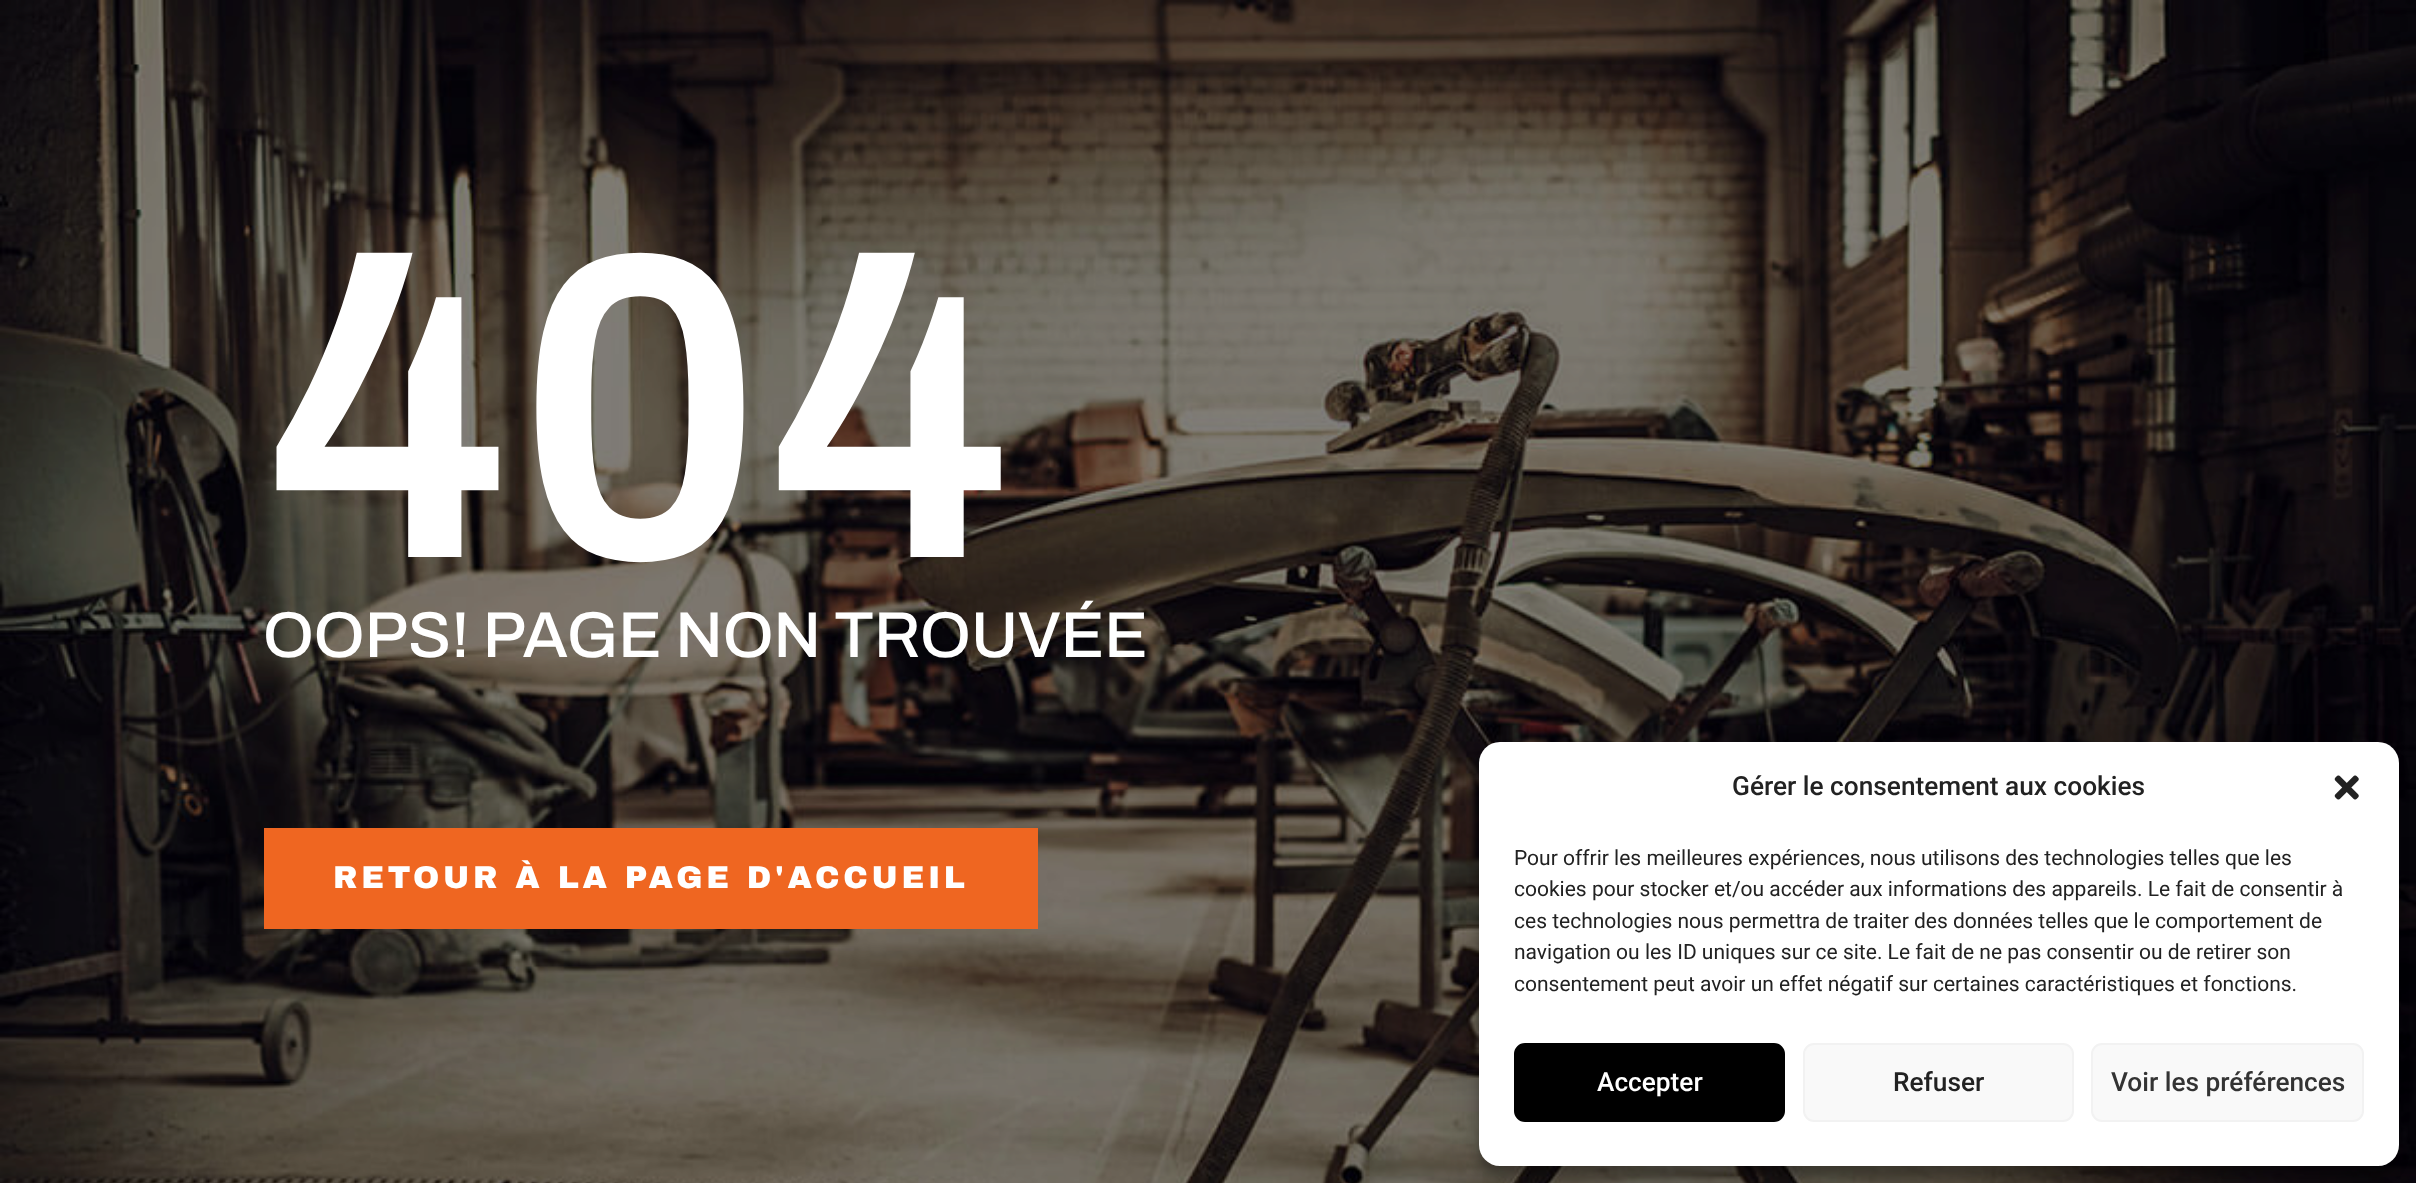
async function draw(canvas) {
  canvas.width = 2416;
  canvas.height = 1183;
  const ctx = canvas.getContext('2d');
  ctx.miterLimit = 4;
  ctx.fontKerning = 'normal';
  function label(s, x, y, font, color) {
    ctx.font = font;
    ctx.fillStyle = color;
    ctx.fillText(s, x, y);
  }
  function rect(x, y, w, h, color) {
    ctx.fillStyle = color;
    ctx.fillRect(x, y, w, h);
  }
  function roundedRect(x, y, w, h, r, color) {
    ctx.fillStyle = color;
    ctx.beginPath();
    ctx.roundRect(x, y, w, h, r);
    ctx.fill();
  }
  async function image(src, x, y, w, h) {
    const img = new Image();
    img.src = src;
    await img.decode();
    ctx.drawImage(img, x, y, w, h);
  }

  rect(0, 0, 2416, 1183, '#fff');
  await image('assets/img1.png', 0, 0, 2416, 1183);
  label('404', 263, 557, '600 436px Archivo', '#fff');
  label('OOPS! PAGE NON TROUVÉE', 263, 657, '500 64.75px Archivo', '#fff');
  rect(264, 828, 774, 101, '#ef6621');
  ctx.letterSpacing = '3.7px';
  label('RETOUR À LA PAGE D\'ACCUEIL', 333, 888, '900 31.5px Archivo Black', '#fff');
  ctx.fillStyle = '#0000003b';
  ctx.filter = 'blur(5px)';
  ctx.beginPath();
  ctx.roundRect(1479, 753, 920, 423, 21);
  ctx.fill();
  ctx.filter = 'none';
  ctx.fillStyle = '#00000030';
  ctx.filter = 'blur(17.5px)';
  ctx.beginPath();
  ctx.roundRect(1479, 760, 920, 423, 21);
  ctx.fill();
  ctx.filter = 'none';
  roundedRect(1479, 742, 920, 424, 21, '#fff');
  ctx.letterSpacing = '0px';
  label('Gérer le consentement aux cookies', 1732, 795, '500 26.25px Roboto', '#222');
  await image('assets/img2.png', 2334, 775, 25, 25);
  label('Pour offrir les meilleures expériences, nous utilisons des technologies telles que les', 1514, 865, '21px Roboto', '#222');
  label('cookies pour stocker et/ou accéder aux informations des appareils. Le fait de consentir à', 1514, 896, '21px Roboto', '#222');
  label('ces technologies nous permettra de traiter des données telles que le comportement de', 1514, 928, '21px Roboto', '#222');
  label('navigation ou les ID uniques sur ce site. Le fait de ne pas consentir ou de retirer son', 1514, 959, '21px Roboto', '#222');
  label('consentement peut avoir un effet négatif sur certaines caractéristiques et fonctions.', 1514, 991, '21px Roboto', '#222');
  ctx.fillStyle = '#000';
  ctx.beginPath();
  ctx.roundRect(1515, 1044, 269, 77, 10);
  ctx.fill();
  ctx.strokeStyle = '#000';
  ctx.lineWidth = 2;
  ctx.stroke();
  label('Accepter', 1597, 1091, '500 26.25px Roboto', '#fff');
  ctx.fillStyle = '#f9f9f9';
  ctx.beginPath();
  ctx.roundRect(1804, 1044, 269, 77, 10);
  ctx.fill();
  ctx.strokeStyle = '#f2f2f2';
  ctx.stroke();
  label('Refuser', 1893, 1091, '500 26.25px Roboto', '#222');
  ctx.fillStyle = '#f9f9f9';
  ctx.beginPath();
  ctx.roundRect(2092, 1044, 271, 77, 10);
  ctx.fill();
  ctx.stroke();
  label('Voir les préférences', 2111, 1091, '500 26.25px Roboto', '#333');
}

draw(document.querySelector('canvas'));
